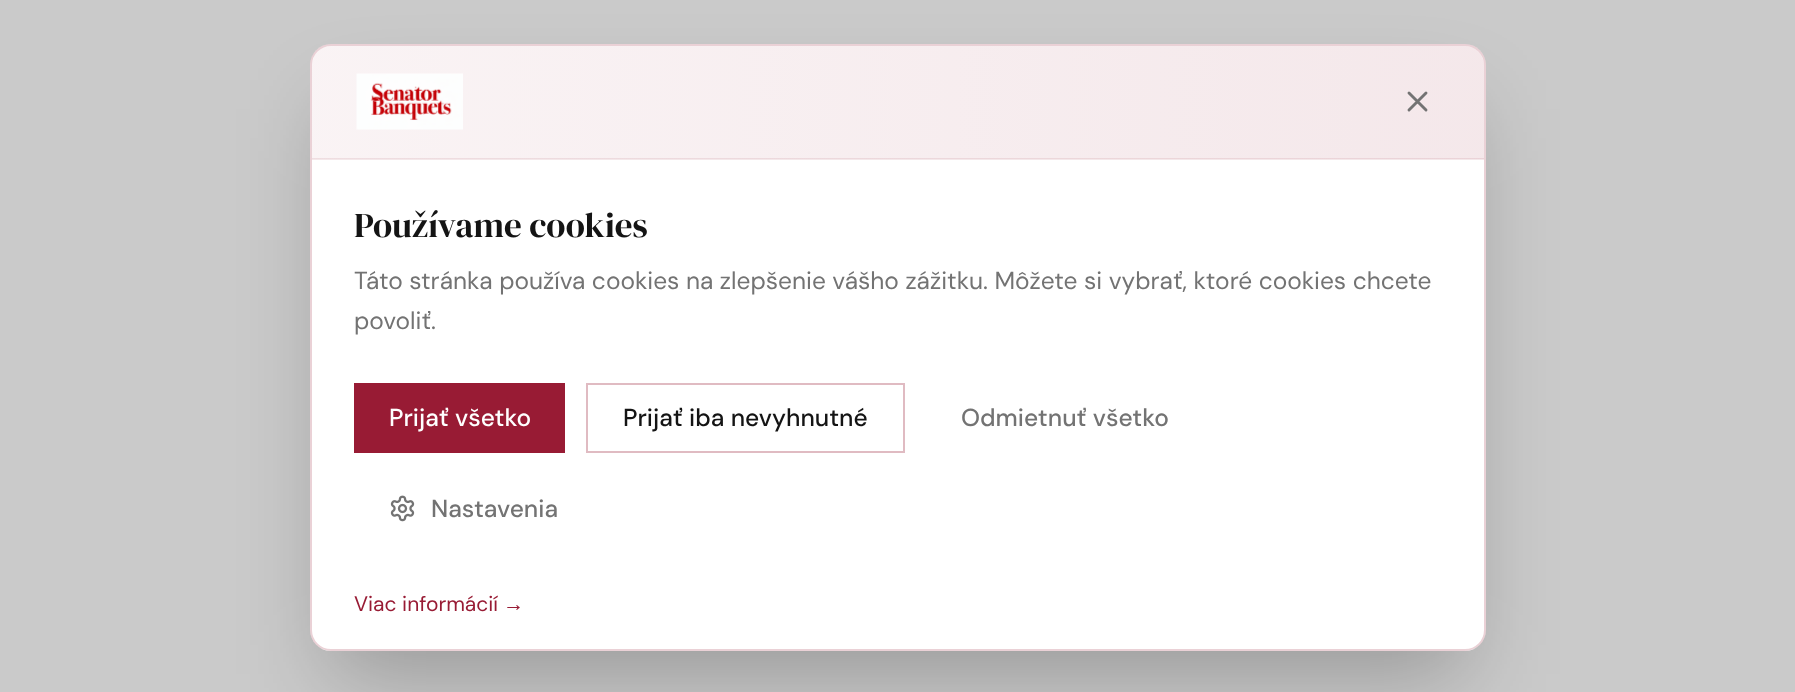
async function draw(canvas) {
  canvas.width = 1795;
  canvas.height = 692;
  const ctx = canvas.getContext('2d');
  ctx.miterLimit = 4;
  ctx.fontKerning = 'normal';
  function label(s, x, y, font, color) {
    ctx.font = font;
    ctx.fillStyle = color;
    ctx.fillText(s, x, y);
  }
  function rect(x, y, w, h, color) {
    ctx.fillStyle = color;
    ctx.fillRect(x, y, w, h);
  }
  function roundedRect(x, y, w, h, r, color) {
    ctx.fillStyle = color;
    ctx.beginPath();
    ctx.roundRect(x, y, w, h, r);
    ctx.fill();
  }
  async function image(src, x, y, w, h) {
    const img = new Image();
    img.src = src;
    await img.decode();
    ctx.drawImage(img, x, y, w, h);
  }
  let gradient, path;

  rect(0, 0, 1795, 692, '#cacaca');
  ctx.fillStyle = '#00000040';
  ctx.filter = 'blur(44px)';
  ctx.beginPath();
  ctx.rect(331, 109, 1134, 565);
  ctx.fill();
  ctx.filter = 'none';
  roundedRect(310, 44, 1176, 607, 21, '#fff');
  ctx.beginPath();
  ctx.roundRect(311, 45, 1174, 605, 20);
  ctx.strokeStyle = '#981b3433';
  ctx.lineWidth = 2;
  ctx.stroke();
  gradient = ctx.createLinearGradient(312, 102, 1484, 101);
  gradient.addColorStop(0, '#981b340d');
  gradient.addColorStop(1, '#981b341a');
  ctx.fillStyle = gradient;
  ctx.beginPath();
  ctx.roundRect(312, 46, 1172, 113, [19, 19, 0, 0]);
  ctx.fill();
  rect(312, 158, 1172, 2, '#981b341a');
  await image('assets/img1.png', 356, 73, 107, 57);
  path = new Path2D('M1426 93L1409 110M1409 93L1426 110');
  ctx.strokeStyle = '#737373';
  ctx.lineWidth = 2.9;
  ctx.lineCap = 'round';
  ctx.lineJoin = 'round';
  ctx.stroke(path);
  label('Používame cookies', 354, 237, '35px DM Serif Display', '#141414');
  label('Táto stránka používa cookies na zlepšenie vášho zážitku. Môžete si vybrať, ktoré cookies chcete', 354, 289, '24.5px DM Sans', '#737373');
  label('povoliť.', 354, 329, '24.5px DM Sans', '#737373');
  rect(354, 383, 211, 70, '#981b34');
  label('Prijať všetko', 389, 426, '500 24.5px DM Sans', '#fff');
  ctx.strokeStyle = '#e0bbc2';
  ctx.lineWidth = 2;
  ctx.lineJoin = 'miter';
  ctx.strokeRect(587, 384, 317, 68);
  label('Prijať iba nevyhnutné', 623, 426, '500 24.5px DM Sans', '#141414');
  label('Odmietnuť všetko', 961, 426, '500 24.5px DM Sans', '#737373');
  await image('assets/img2.png', 390, 495, 25, 27);
  label('Nastavenia', 431, 517, '500 24.5px DM Sans', '#737373');
  label('Viac informácií', 354, 611, '21px DM Sans', '#981b34');
  label('→', 503, 611, '21px Liberation Sans', '#981b34');
}

draw(document.querySelector('canvas'));
